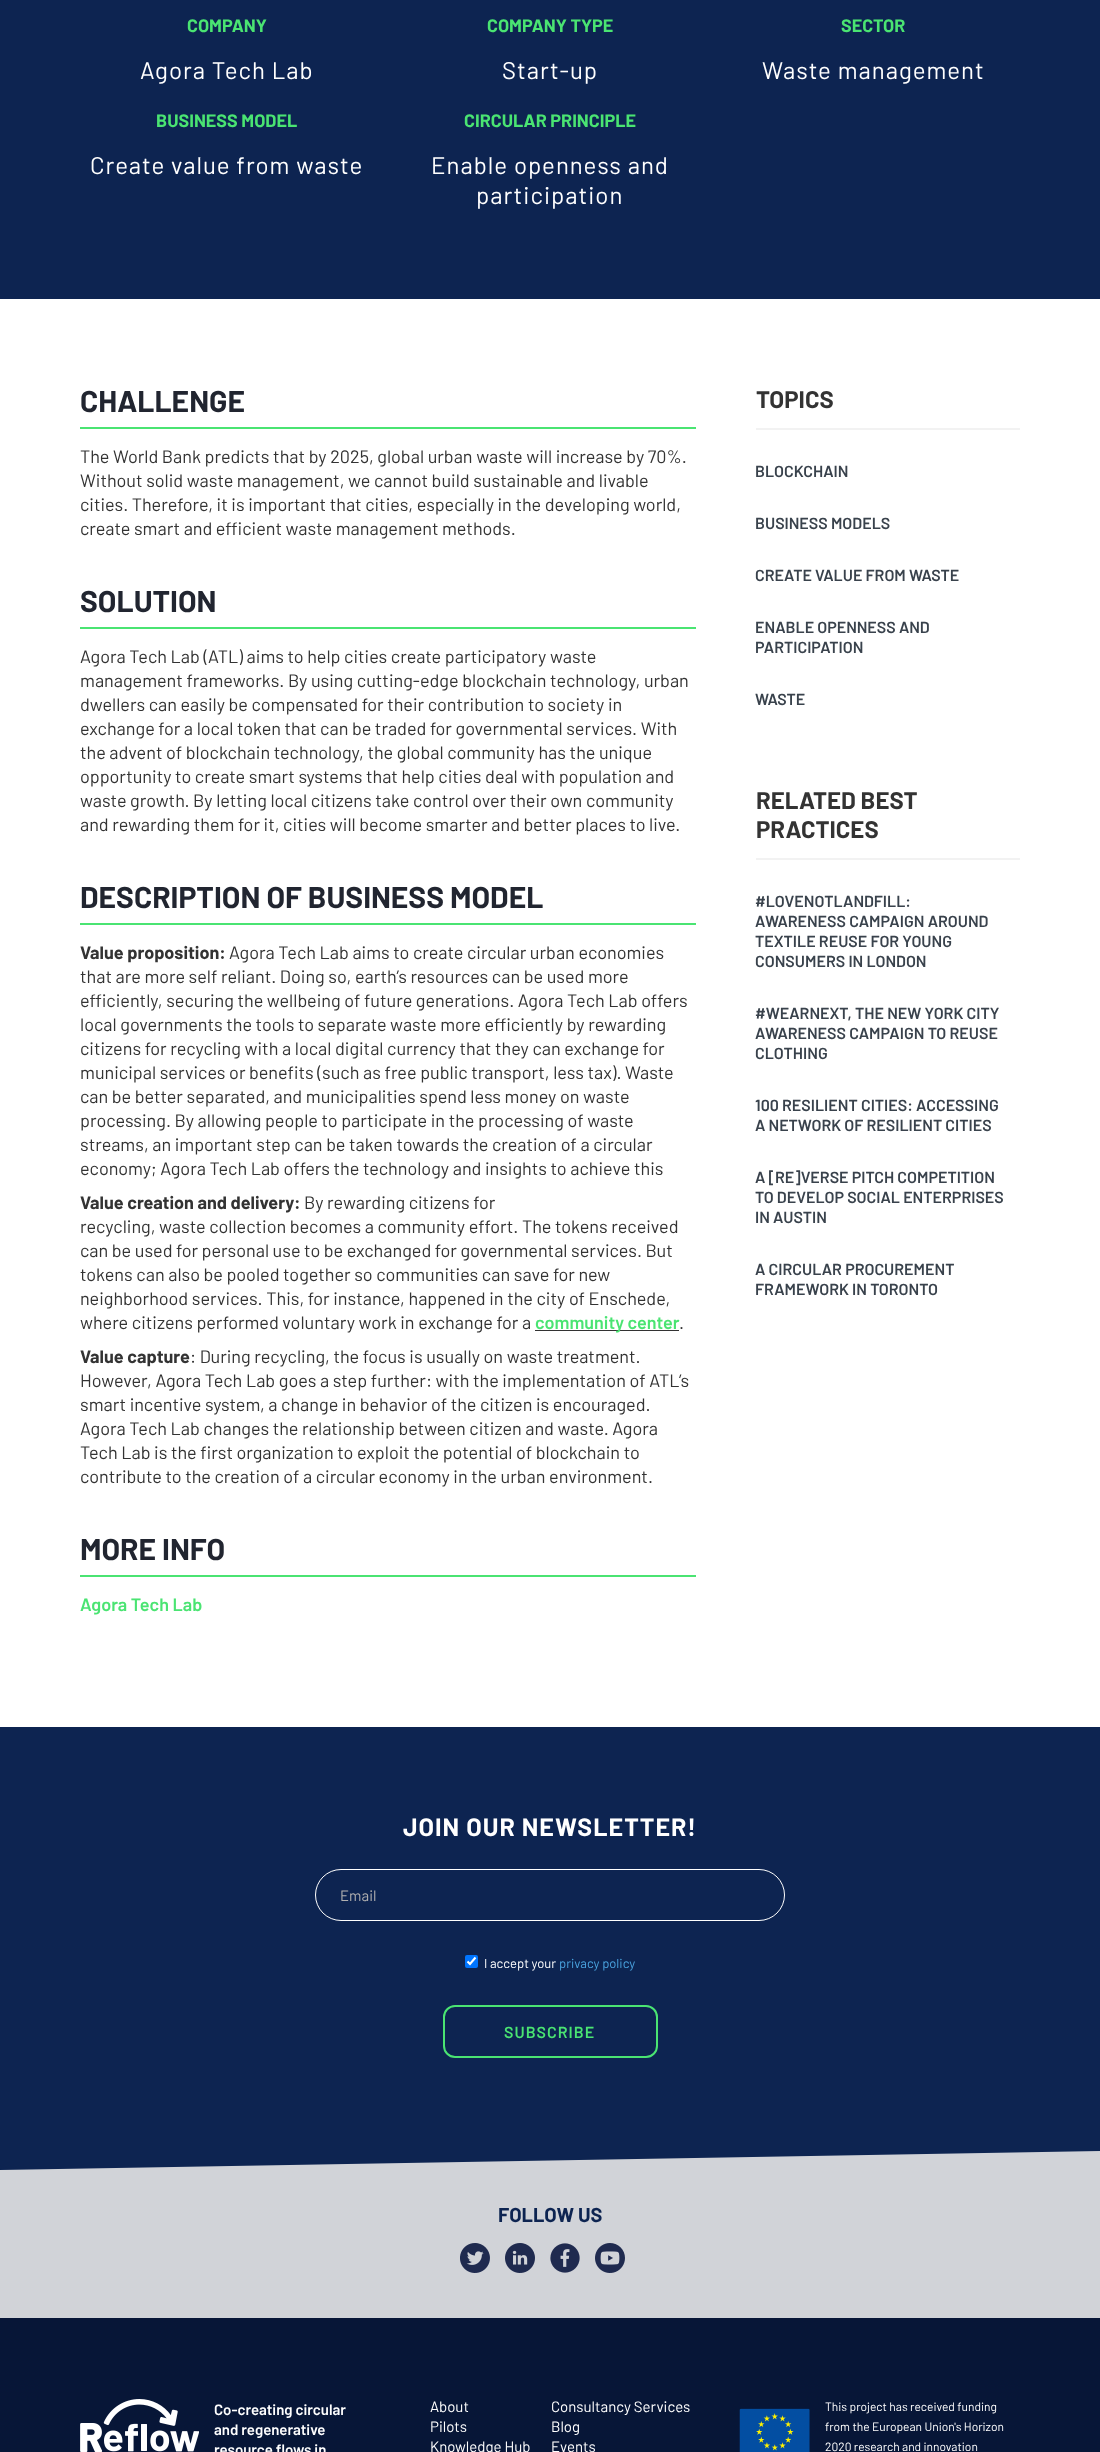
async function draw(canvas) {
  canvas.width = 1100;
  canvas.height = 2452;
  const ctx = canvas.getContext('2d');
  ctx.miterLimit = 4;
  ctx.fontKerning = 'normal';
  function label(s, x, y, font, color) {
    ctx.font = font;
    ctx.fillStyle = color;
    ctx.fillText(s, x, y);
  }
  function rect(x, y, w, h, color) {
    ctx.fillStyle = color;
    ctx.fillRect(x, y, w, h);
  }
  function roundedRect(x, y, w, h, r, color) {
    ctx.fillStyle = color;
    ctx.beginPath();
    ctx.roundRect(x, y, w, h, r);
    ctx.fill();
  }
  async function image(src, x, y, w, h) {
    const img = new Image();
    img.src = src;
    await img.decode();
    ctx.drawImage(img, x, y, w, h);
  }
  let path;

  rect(0, 0, 1100, 2452, '#fff');
  rect(0, 0, 1100, 299, '#0d2451');
  label('COMPANY', 187, 32, 'bold 18px Barlow', '#4ae472');
  ctx.letterSpacing = '1px';
  label('Agora Tech Lab', 140, 79, '24px Barlow', '#fff');
  ctx.letterSpacing = '0px';
  label('COMPANY TYPE', 487, 32, 'bold 18px Barlow', '#4ae472');
  ctx.letterSpacing = '1px';
  label('Start-up', 502, 79, '24px Barlow', '#fff');
  ctx.letterSpacing = '0px';
  label('SECTOR', 841, 32, 'bold 18px Barlow', '#4ae472');
  ctx.letterSpacing = '1px';
  label('Waste management', 762, 79, '24px Barlow', '#fff');
  ctx.letterSpacing = '0px';
  label('BUSINESS MODEL', 156, 127, 'bold 18px Barlow', '#4ae472');
  ctx.letterSpacing = '1px';
  label('Create value from waste', 90, 174, '24px Barlow', '#fff');
  ctx.letterSpacing = '0px';
  label('CIRCULAR PRINCIPLE', 464, 127, 'bold 18px Barlow', '#4ae472');
  ctx.letterSpacing = '1px';
  label('Enable openness and', 431, 174, '24px Barlow', '#fff');
  label('participation', 476, 204, '24px Barlow', '#fff');
  rect(80, 427, 616, 2, '#4ae472');
  ctx.letterSpacing = '0px';
  label('CHALLENGE', 80, 412, 'bold 30px Barlow', '#212530');
  label('The World Bank predicts that by 2025, global urban waste will increase by 70%.', 80, 463, '18px Barlow', '#333');
  label('Without solid waste management, we cannot build sustainable and livable', 80, 487, '18px Barlow', '#333');
  label('cities. Therefore, it is important that cities, especially in the developing world,', 80, 511, '18px Barlow', '#333');
  label('create smart and efficient waste management methods.', 80, 535, '18px Barlow', '#333');
  rect(80, 627, 616, 2, '#4ae472');
  label('SOLUTION', 80, 612, 'bold 30px Barlow', '#212530');
  label('Agora Tech Lab (ATL) aims to help cities create participatory waste', 80, 663, '18px Barlow', '#333');
  label('management frameworks. By using cutting-edge blockchain technology, urban', 80, 687, '18px Barlow', '#333');
  label('dwellers can easily be compensated for their contribution to society in', 80, 711, '18px Barlow', '#333');
  label('exchange for a local token that can be traded for governmental services. With', 80, 735, '18px Barlow', '#333');
  label('the advent of blockchain technology, the global community has the unique', 80, 759, '18px Barlow', '#333');
  label('opportunity to create smart systems that help cities deal with population and', 80, 783, '18px Barlow', '#333');
  label('waste growth. By letting local citizens take control over their own community', 80, 807, '18px Barlow', '#333');
  label('and rewarding them for it, cities will become smarter and better places to live.', 80, 831, '18px Barlow', '#333');
  rect(80, 923, 616, 2, '#4ae472');
  label('DESCRIPTION OF BUSINESS MODEL', 80, 908, 'bold 30px Barlow', '#212530');
  label('Value proposition:', 80, 959, 'bold 18px Barlow', '#333');
  label('Agora Tech Lab aims to create circular urban economies', 229, 959, '18px Barlow', '#333');
  label('that are more self reliant. Doing so, earth’s resources can be used more', 80, 983, '18px Barlow', '#333');
  label('efficiently, securing the wellbeing of future generations. Agora Tech Lab offers', 80, 1007, '18px Barlow', '#333');
  label('local governments the tools to separate waste more efficiently by rewarding', 80, 1031, '18px Barlow', '#333');
  label('citizens for recycling with a local digital currency that they can exchange for', 80, 1055, '18px Barlow', '#333');
  label('municipal services or benefits (such as free public transport, less tax). Waste', 80, 1079, '18px Barlow', '#333');
  label('can be better separated, and municipalities spend less money on waste', 80, 1103, '18px Barlow', '#333');
  label('processing. By allowing people to participate in the processing of waste', 80, 1127, '18px Barlow', '#333');
  label('streams, an important step can be taken towards the creation of a circular', 80, 1151, '18px Barlow', '#333');
  label('economy; Agora Tech Lab offers the technology and insights to achieve this', 80, 1175, '18px Barlow', '#333');
  label('Value creation and delivery:', 80, 1209, 'bold 18px Barlow', '#333');
  label('By rewarding citizens for', 304, 1209, '18px Barlow', '#333');
  label('recycling, waste collection becomes a community effort. The tokens received', 80, 1233, '18px Barlow', '#333');
  label('can be used for personal use to be exchanged for governmental services. But', 80, 1257, '18px Barlow', '#333');
  label('tokens can also be pooled together so communities can save for new', 80, 1281, '18px Barlow', '#333');
  label('neighborhood services. This, for instance, happened in the city of Enschede,', 80, 1305, '18px Barlow', '#333');
  label('where citizens performed voluntary work in exchange for a', 80, 1329, '18px Barlow', '#333');
  rect(535, 1330, 144, 1, '#333');
  label('community center', 535, 1329, '600 18px Barlow', '#4ae472');
  label('.', 679, 1329, '18px Barlow', '#333');
  label('Value capture', 80, 1363, 'bold 18px Barlow', '#333');
  label(': During recycling, the focus is usually on waste treatment.', 190, 1363, '18px Barlow', '#333');
  label('However, Agora Tech Lab goes a step further: with the implementation of ATL’s', 80, 1387, '18px Barlow', '#333');
  label('smart incentive system, a change in behavior of the citizen is encouraged.', 80, 1411, '18px Barlow', '#333');
  label('Agora Tech Lab changes the relationship between citizen and waste. Agora', 80, 1435, '18px Barlow', '#333');
  label('Tech Lab is the first organization to exploit the potential of blockchain to', 80, 1459, '18px Barlow', '#333');
  label('contribute to the creation of a circular economy in the urban environment.', 80, 1483, '18px Barlow', '#333');
  rect(80, 1575, 616, 2, '#4ae472');
  label('MORE INFO', 80, 1560, 'bold 30px Barlow', '#212530');
  label('Agora Tech Lab', 80, 1611, '600 18px Barlow', '#4ae472');
  rect(756, 428, 264, 2, '#f2f2f2');
  label('TOPICS', 756, 408, 'bold 24px Barlow', '#333');
  label('BLOCKCHAIN', 755, 477, '600 16px Barlow', '#39424c');
  label('BUSINESS MODELS', 755, 529, '600 16px Barlow', '#39424c');
  label('CREATE VALUE FROM WASTE', 755, 581, '600 16px Barlow', '#39424c');
  label('ENABLE OPENNESS AND', 755, 633, '600 16px Barlow', '#39424c');
  label('PARTICIPATION', 755, 653, '600 16px Barlow', '#39424c');
  label('WASTE', 755, 705, '600 16px Barlow', '#39424c');
  rect(756, 858, 264, 2, '#f2f2f2');
  label('RELATED BEST', 756, 809, 'bold 24px Barlow', '#333');
  label('PRACTICES', 756, 838, 'bold 24px Barlow', '#333');
  label('#LOVENOTLANDFILL:', 755, 907, '600 16px Barlow', '#39424c');
  label('AWARENESS CAMPAIGN AROUND', 755, 927, '600 16px Barlow', '#39424c');
  label('TEXTILE REUSE FOR YOUNG', 755, 947, '600 16px Barlow', '#39424c');
  label('CONSUMERS IN LONDON', 755, 967, '600 16px Barlow', '#39424c');
  label('#WEARNEXT, THE NEW YORK CITY', 755, 1019, '600 16px Barlow', '#39424c');
  label('AWARENESS CAMPAIGN TO REUSE', 755, 1039, '600 16px Barlow', '#39424c');
  label('CLOTHING', 755, 1059, '600 16px Barlow', '#39424c');
  label('100 RESILIENT CITIES: ACCESSING', 755, 1111, '600 16px Barlow', '#39424c');
  label('A NETWORK OF RESILIENT CITIES', 755, 1131, '600 16px Barlow', '#39424c');
  label('A [RE]VERSE PITCH COMPETITION', 755, 1183, '600 16px Barlow', '#39424c');
  label('TO DEVELOP SOCIAL ENTERPRISES', 755, 1203, '600 16px Barlow', '#39424c');
  label('IN AUSTIN', 755, 1223, '600 16px Barlow', '#39424c');
  label('A CIRCULAR PROCUREMENT', 755, 1275, '600 16px Barlow', '#39424c');
  label('FRAMEWORK IN TORONTO', 755, 1295, '600 16px Barlow', '#39424c');
  rect(0, 1727, 1100, 443, '#0d2451');
  ctx.letterSpacing = '1px';
  label('JOIN OUR NEWSLETTER!', 403, 1836, 'bold 25px Barlow', '#fff');
  ctx.beginPath();
  ctx.roundRect(315.5, 1869.5, 469, 51, 25.5);
  ctx.strokeStyle = '#fff';
  ctx.stroke();
  ctx.letterSpacing = '0px';
  label('Email', 340, 1901, '15px Barlow', '#b2b1b1');
  roundedRect(465, 1955, 13, 13, 2, '#0075ff');
  path = new Path2D('M467.5 1961.5L470 1964L475.5 1957.5');
  ctx.lineWidth = 2.1;
  ctx.stroke(path);
  label('I accept your', 484, 1968, '13px Barlow', '#fff');
  label('privacy policy', 559, 1968, '13px Barlow', '#4aa3df');
  ctx.beginPath();
  ctx.roundRect(444, 2006, 213, 51, 11);
  ctx.strokeStyle = '#4ae472';
  ctx.lineWidth = 2;
  ctx.stroke();
  ctx.letterSpacing = '1px';
  label('SUBSCRIBE', 504, 2038, '600 16px Barlow', '#4ae472');
  rect(0, 2318, 1100, 134, '#071637');
  ctx.fillStyle = '#d1d3d8';
  path = new Path2D('M0 2170L1100 2151V2299L0 2318Z');
  ctx.fill(path);
  rect(2, 2299, 1098, 19, '#d1d3d8');
  ctx.letterSpacing = '0px';
  label('FOLLOW US', 498, 2222, 'bold 20px Barlow', '#0d2451');
  await image('assets/img1.png', 460, 2243, 30, 30);
  await image('assets/img2.png', 505, 2243, 30, 30);
  await image('assets/img3.png', 550, 2243, 30, 30);
  await image('assets/img4.png', 595, 2243, 30, 30);
  await image('assets/img5.png', 80, 2399, 119, 53);
  label('Co-creating circular', 214, 2415, '600 15px Barlow', '#fff');
  label('and regenerative', 214, 2435, '600 15px Barlow', '#fff');
  label('resource flows in', 214, 2455, '600 15px Barlow', '#fff');
  label('About', 430, 2412, '15px Barlow', '#fff');
  label('Consultancy Services', 551, 2412, '15px Barlow', '#fff');
  label('Pilots', 430, 2432, '15px Barlow', '#fff');
  label('Blog', 551, 2432, '15px Barlow', '#fff');
  label('Knowledge Hub', 430, 2452, '15px Barlow', '#fff');
  label('Events', 551, 2452, '15px Barlow', '#fff');
  await image('assets/img6.png', 739, 2408, 71, 44);
  label('This project has received funding', 825, 2411, '12px Barlow', '#fff');
  label('from the European Union\'s Horizon', 825, 2431, '12px Barlow', '#fff');
  label('2020 research and innovation', 825, 2451, '12px Barlow', '#fff');
}

draw(document.querySelector('canvas'));
